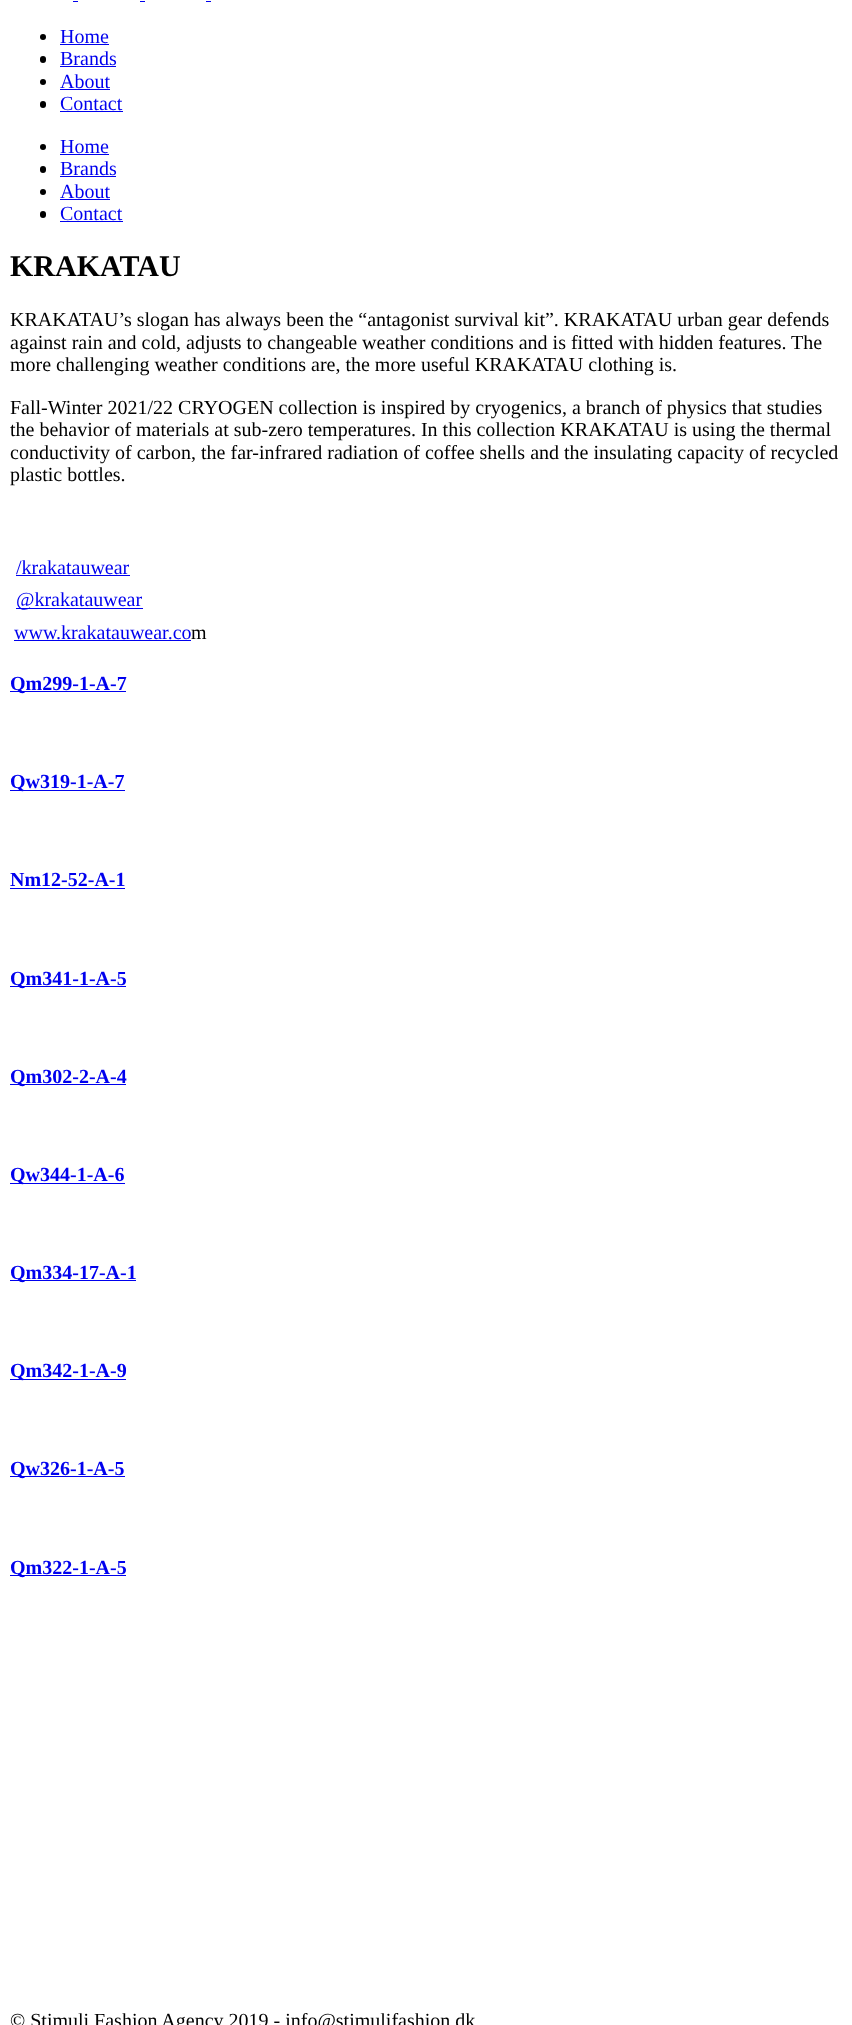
async function draw(canvas) {
  canvas.width = 852;
  canvas.height = 2025;
  const ctx = canvas.getContext('2d');
  ctx.miterLimit = 4;
  ctx.fontKerning = 'normal';
  function label(s, x, y, font, color) {
    ctx.font = font;
    ctx.fillStyle = color;
    ctx.fillText(s, x, y);
  }
  function rect(x, y, w, h, color) {
    ctx.fillStyle = color;
    ctx.fillRect(x, y, w, h);
  }
  function roundedRect(x, y, w, h, r, color) {
    ctx.fillStyle = color;
    ctx.beginPath();
    ctx.roundRect(x, y, w, h, r);
    ctx.fill();
  }

  rect(0, 0, 852, 2025, '#fff');
  rect(73, 1, 5, 1, '#00e');
  rect(140, 1, 5, 1, '#00e');
  rect(206, 1, 5, 1, '#00e');
  ctx.fillStyle = '#000';
  ctx.beginPath();
  ctx.arc(43, 37, 3, 0, 2 * Math.PI);
  ctx.fill();
  label('Home', 60, 43, '20px Liberation Serif', '#00e');
  rect(60, 44, 49, 1, '#00e');
  roundedRect(40, 56, 6, 7, 3, '#000');
  label('Brands', 60, 65, '20px Liberation Serif', '#00e');
  rect(60, 66, 56, 1, '#00e');
  ctx.fillStyle = '#000';
  ctx.beginPath();
  ctx.arc(43, 82, 3, 0, 2 * Math.PI);
  ctx.fill();
  label('About', 60, 88, '20px Liberation Serif', '#00e');
  rect(60, 89, 50, 1, '#00e');
  roundedRect(40, 101, 6, 7, 3, '#000');
  label('Contact', 60, 110, '20px Liberation Serif', '#00e');
  rect(60, 111, 63, 1, '#00e');
  ctx.fillStyle = '#000';
  ctx.beginPath();
  ctx.arc(43, 147, 3, 0, 2 * Math.PI);
  ctx.fill();
  label('Home', 60, 153, '20px Liberation Serif', '#00e');
  rect(60, 154, 49, 1, '#00e');
  roundedRect(40, 166, 6, 7, 3, '#000');
  label('Brands', 60, 175, '20px Liberation Serif', '#00e');
  rect(60, 176, 56, 1, '#00e');
  ctx.fillStyle = '#000';
  ctx.beginPath();
  ctx.arc(43, 192, 3, 0, 2 * Math.PI);
  ctx.fill();
  label('About', 60, 198, '20px Liberation Serif', '#00e');
  rect(60, 199, 50, 1, '#00e');
  roundedRect(40, 211, 6, 7, 3, '#000');
  label('Contact', 60, 220, '20px Liberation Serif', '#00e');
  rect(60, 221, 63, 1, '#00e');
  label('KRAKATAU', 10, 276, 'bold 30px Liberation Serif', '#000');
  label('KRAKATAU’s slogan has always been the “antagonist survival kit”. KRAKATAU urban gear defends', 10, 326, '20px Liberation Serif', '#000');
  label('against rain and cold, adjusts to changeable weather conditions and is fitted with hidden features. The', 10, 349, '20px Liberation Serif', '#000');
  label('more challenging weather conditions are, the more useful KRAKATAU clothing is.', 10, 371, '20px Liberation Serif', '#000');
  label('Fall-Winter 2021/22 CRYOGEN collection is inspired by cryogenics, a branch of physics that studies', 10, 414, '20px Liberation Serif', '#000');
  label('the behavior of materials at sub-zero temperatures. In this collection KRAKATAU is using the thermal', 10, 436, '20px Liberation Serif', '#000');
  label('conductivity of carbon, the far-infrared radiation of coffee shells and the insulating capacity of recycled', 10, 459, '20px Liberation Serif', '#000');
  label('plastic bottles.', 10, 481, '20px Liberation Serif', '#000');
  label('/krakatauwear', 16, 574, '20px Liberation Serif', '#00e');
  rect(16, 575, 114, 1, '#00e');
  rect(16, 608, 127, 1, '#00e');
  label('@krakatauwear', 16, 606, '20px Liberation Serif', '#00e');
  label('www.krakatauwear.co', 14, 639, '20px Liberation Serif', '#00e');
  rect(14, 640, 177, 1, '#00e');
  label('m', 191, 639, '20px Liberation Serif', '#000');
  rect(10, 691, 116, 1, '#00e');
  label('Qm299-1-A-7', 10, 690, 'bold 20px Liberation Serif', '#00e');
  rect(10, 790, 115, 1, '#00e');
  label('Qw319-1-A-7', 10, 788, 'bold 20px Liberation Serif', '#00e');
  label('Nm12-52-A-1', 10, 886, 'bold 20px Liberation Serif', '#00e');
  rect(10, 888, 115, 1, '#00e');
  rect(10, 986, 116, 1, '#00e');
  label('Qm341-1-A-5', 10, 985, 'bold 20px Liberation Serif', '#00e');
  rect(10, 1084, 116, 1, '#00e');
  label('Qm302-2-A-4', 10, 1083, 'bold 20px Liberation Serif', '#00e');
  rect(10, 1183, 115, 1, '#00e');
  label('Qw344-1-A-6', 10, 1181, 'bold 20px Liberation Serif', '#00e');
  rect(10, 1280, 126, 1, '#00e');
  label('Qm334-17-A-1', 10, 1279, 'bold 20px Liberation Serif', '#00e');
  rect(10, 1379, 116, 1, '#00e');
  label('Qm342-1-A-9', 10, 1377, 'bold 20px Liberation Serif', '#00e');
  rect(10, 1476, 115, 1, '#00e');
  label('Qw326-1-A-5', 10, 1475, 'bold 20px Liberation Serif', '#00e');
  rect(10, 1575, 116, 1, '#00e');
  label('Qm322-1-A-5', 10, 1574, 'bold 20px Liberation Serif', '#00e');
  label('© Stimuli Fashion Agency 2019 - info@stimulifashion.dk', 10, 2027, '20px Liberation Serif', '#000');
}

draw(document.querySelector('canvas'));
